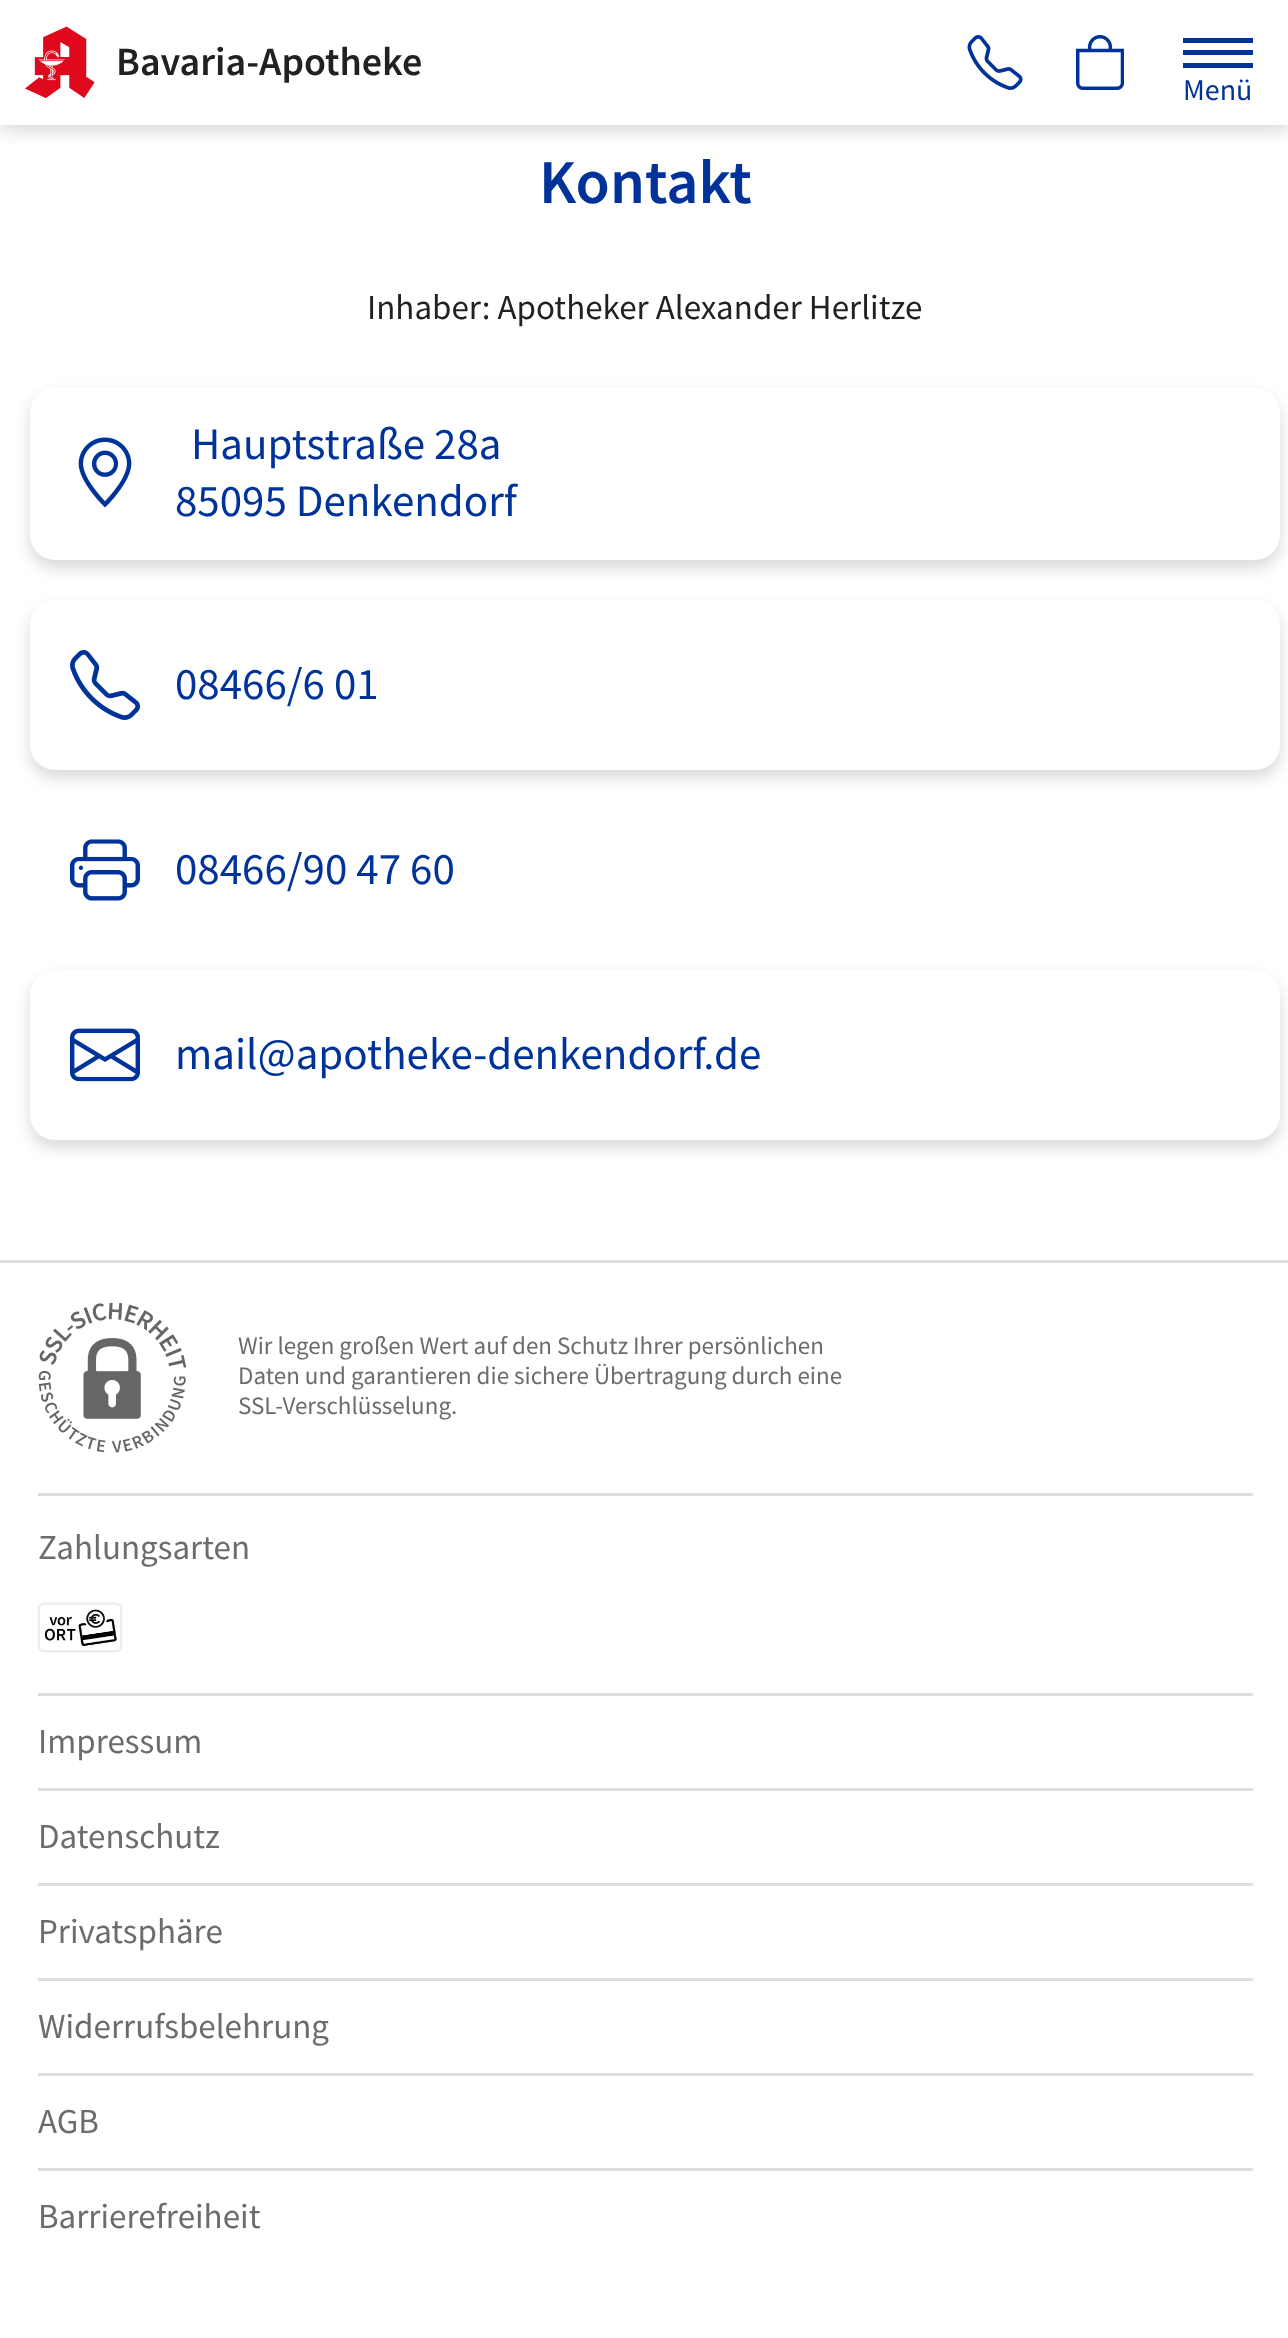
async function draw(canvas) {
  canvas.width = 1288;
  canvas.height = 2338;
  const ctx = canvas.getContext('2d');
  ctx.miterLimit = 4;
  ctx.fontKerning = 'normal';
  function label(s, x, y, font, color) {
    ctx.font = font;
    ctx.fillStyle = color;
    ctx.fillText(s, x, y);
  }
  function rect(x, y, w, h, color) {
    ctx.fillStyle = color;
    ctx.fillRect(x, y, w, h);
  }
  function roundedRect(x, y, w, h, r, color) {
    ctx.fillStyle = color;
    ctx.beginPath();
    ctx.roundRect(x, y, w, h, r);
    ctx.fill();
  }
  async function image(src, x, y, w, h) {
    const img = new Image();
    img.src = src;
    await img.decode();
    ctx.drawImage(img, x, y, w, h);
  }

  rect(0, 0, 1288, 2338, '#fff');
  ctx.save();
  ctx.beginPath();
  ctx.rect(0, 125, 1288, 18);
  ctx.clip();
  ctx.fillStyle = '#00000040';
  ctx.filter = 'blur(12.5px)';
  ctx.beginPath();
  ctx.rect(0, 0, 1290, 125);
  ctx.fill();
  ctx.filter = 'none';
  ctx.restore();
  await image('assets/img1.png', 25, 26, 70, 73);
  label('Bavaria-Apotheke', 116, 75, '600 40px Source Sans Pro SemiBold', '#212121');
  await image('assets/img2.png', 967, 35, 56, 55);
  await image('assets/img3.png', 1076, 35, 48, 55);
  rect(1183, 50, 70, 5, '#039');
  rect(1183, 38, 70, 5, '#039');
  rect(1183, 63, 70, 5, '#039');
  label('Menü', 1183, 100, '30px Source Sans Pro', '#039');
  label('Kontakt', 539, 203, '600 62.5px Source Sans Pro SemiBold', '#039');
  label('Inhaber: Apotheker Alexander Herlitze', 367, 319, '35px Source Sans Pro', '#212121');
  ctx.fillStyle = '#00000026';
  ctx.filter = 'blur(7.5px)';
  ctx.beginPath();
  ctx.roundRect(30, 395, 1250, 173, 25);
  ctx.fill();
  ctx.filter = 'none';
  roundedRect(30, 388, 1250, 172, 25, '#fff');
  await image('assets/img4.png', 78, 437, 54, 71);
  label('Hauptstraße 28a', 191, 459, '45px Source Sans Pro', '#039');
  label('85095 Denkendorf', 175, 516, '45px Source Sans Pro', '#039');
  ctx.fillStyle = '#00000026';
  ctx.filter = 'blur(7.5px)';
  ctx.beginPath();
  ctx.roundRect(30, 608, 1250, 170, 25);
  ctx.fill();
  ctx.filter = 'none';
  roundedRect(30, 600, 1250, 170, 25, '#fff');
  await image('assets/img5.png', 70, 650, 70, 70);
  label('08466/6 01', 175, 699, '45px Source Sans Pro', '#039');
  await image('assets/img6.png', 70, 839, 70, 62);
  label('08466/90 47 60', 175, 884, '45px Source Sans Pro', '#039');
  ctx.fillStyle = '#00000026';
  ctx.filter = 'blur(7.5px)';
  ctx.beginPath();
  ctx.roundRect(30, 978, 1250, 170, 25);
  ctx.fill();
  ctx.filter = 'none';
  roundedRect(30, 970, 1250, 170, 25, '#fff');
  await image('assets/img7.png', 70, 1028, 70, 54);
  label('mail@apotheke-denkendorf.de', 175, 1069, '45px Source Sans Pro', '#039');
  rect(0, 1260, 1288, 3, '#dedede');
  await image('assets/img8.png', 38, 1303, 149, 150);
  label('Wir legen großen Wert auf den Schutz Ihrer persönlichen', 238, 1354, '25px Source Sans Pro', '#6c6c6c');
  label('Daten und garantieren die sichere Übertragung durch eine', 238, 1384, '25px Source Sans Pro', '#6c6c6c');
  label('SSL-Verschlüsselung.', 238, 1414, '25px Source Sans Pro', '#6c6c6c');
  rect(38, 1493, 1215, 3, '#dedede');
  label('Zahlungsarten', 38, 1559, '35px Source Sans Pro', '#6c6c6c');
  await image('assets/img9.png', 37, 1602, 86, 51);
  rect(38, 1693, 1215, 3, '#dedede');
  label('Impressum', 38, 1753, '35px Source Sans Pro', '#6c6c6c');
  rect(38, 1788, 1215, 3, '#dedede');
  label('Datenschutz', 38, 1848, '35px Source Sans Pro', '#6c6c6c');
  rect(38, 1883, 1215, 3, '#dedede');
  label('Privatsphäre', 38, 1943, '35px Source Sans Pro', '#6c6c6c');
  rect(38, 1978, 1215, 3, '#dedede');
  label('Widerrufsbelehrung', 38, 2038, '35px Source Sans Pro', '#6c6c6c');
  rect(38, 2073, 1215, 3, '#dedede');
  label('AGB', 38, 2133, '35px Source Sans Pro', '#6c6c6c');
  rect(38, 2168, 1215, 3, '#dedede');
  label('Barrierefreiheit', 38, 2228, '35px Source Sans Pro', '#6c6c6c');
}

draw(document.querySelector('canvas'));
